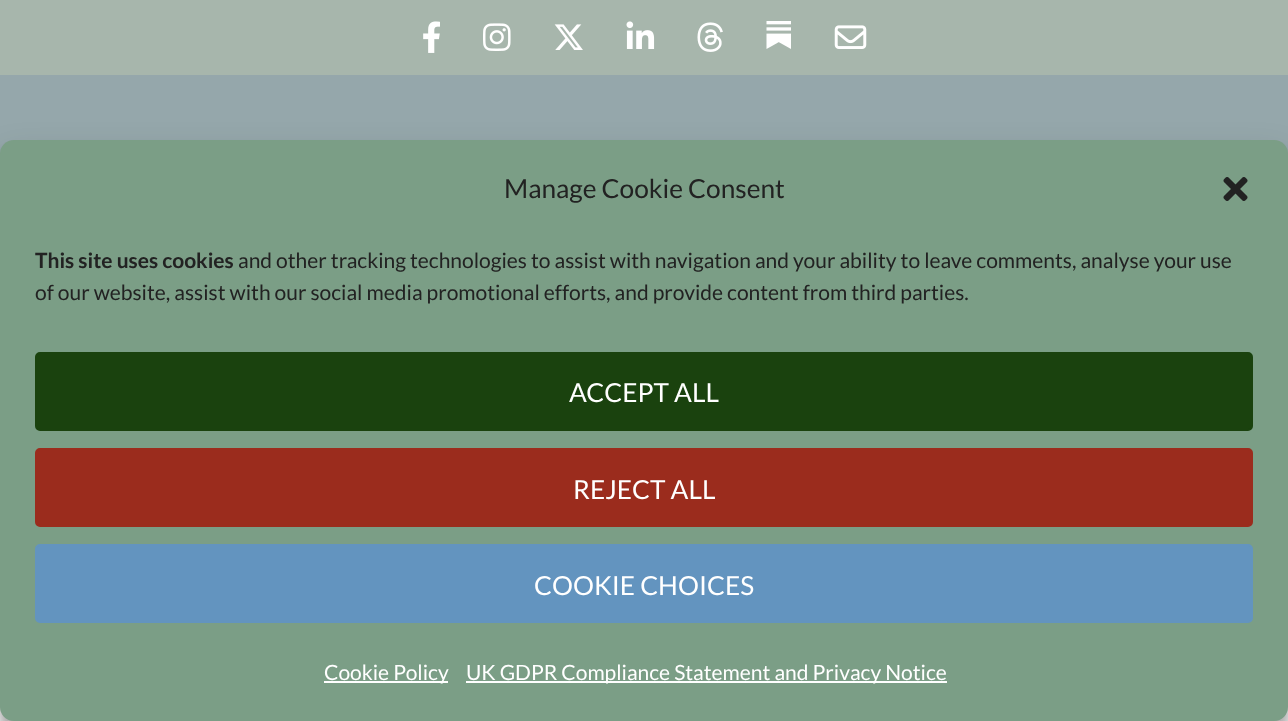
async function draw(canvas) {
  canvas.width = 1288;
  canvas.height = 721;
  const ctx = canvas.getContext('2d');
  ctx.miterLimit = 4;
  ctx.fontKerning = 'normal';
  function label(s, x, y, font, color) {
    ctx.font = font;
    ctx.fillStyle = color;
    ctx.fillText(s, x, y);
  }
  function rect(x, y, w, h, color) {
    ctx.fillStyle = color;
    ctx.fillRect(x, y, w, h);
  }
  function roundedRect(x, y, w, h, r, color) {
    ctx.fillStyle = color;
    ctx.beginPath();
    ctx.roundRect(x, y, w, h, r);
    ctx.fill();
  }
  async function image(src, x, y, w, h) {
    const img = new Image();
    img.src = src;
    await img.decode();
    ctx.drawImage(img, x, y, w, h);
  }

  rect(0, 0, 1288, 721, '#a7b6ac');
  await image('assets/img1.png', 423, 21, 17, 32);
  await image('assets/img2.png', 483, 23, 28, 28);
  await image('assets/img3.png', 554, 24, 29, 26);
  await image('assets/img4.png', 626, 21, 29, 28);
  await image('assets/img5.png', 697, 22, 26, 30);
  await image('assets/img6.png', 766, 21, 25, 28);
  await image('assets/img7.png', 834, 25, 33, 24);
  rect(0, 75, 1288, 79, '#95a7ab');
  rect(0, 707, 1288, 14, '#fff');
  ctx.fillStyle = '#0000003b';
  ctx.filter = 'blur(5px)';
  ctx.beginPath();
  ctx.roundRect(0, 151, 1288, 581, 14);
  ctx.fill();
  ctx.filter = 'none';
  ctx.fillStyle = '#00000030';
  ctx.filter = 'blur(17.5px)';
  ctx.beginPath();
  ctx.roundRect(0, 158, 1288, 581, 14);
  ctx.fill();
  ctx.filter = 'none';
  roundedRect(0, 140, 1288, 581, 14, '#7b9e86');
  label('Manage Cookie Consent', 504, 198, '26.25px Lato', '#222');
  await image('assets/img8.png', 1223, 177, 25, 24);
  label('This site uses cookies', 35, 268, 'bold 21px Lato', '#222');
  label('and other tracking technologies to assist with navigation and your ability to leave comments, analyse your use', 238, 268, '21px Lato', '#222');
  label('of our website, assist with our social media promotional efforts, and provide content from third parties.', 35, 300, '21px Lato', '#222');
  ctx.fillStyle = '#1a420e';
  ctx.beginPath();
  ctx.roundRect(36, 353, 1216, 77, 4);
  ctx.fill();
  ctx.strokeStyle = '#1a420e';
  ctx.lineWidth = 2;
  ctx.stroke();
  label('ACCEPT ALL', 569, 402, '26.25px Lato', '#fff');
  ctx.fillStyle = '#9b2c1d';
  ctx.beginPath();
  ctx.roundRect(36, 449, 1216, 77, 4);
  ctx.fill();
  ctx.strokeStyle = '#9b2c1d';
  ctx.stroke();
  label('REJECT ALL', 573, 499, '26.25px Lato', '#fff');
  ctx.fillStyle = '#6394bf';
  ctx.beginPath();
  ctx.roundRect(36, 545, 1216, 77, 4);
  ctx.fill();
  ctx.strokeStyle = '#6394bf';
  ctx.stroke();
  label('COOKIE CHOICES', 534, 595, '26.25px Lato', '#fff');
  rect(324, 681, 124, 2, '#fff');
  label('Cookie Policy', 324, 680, '21px Lato', '#fff');
  rect(466, 681, 481, 2, '#fff');
  label('UK GDPR Compliance Statement and Privacy Notice', 466, 680, '21px Lato', '#fff');
}

draw(document.querySelector('canvas'));
